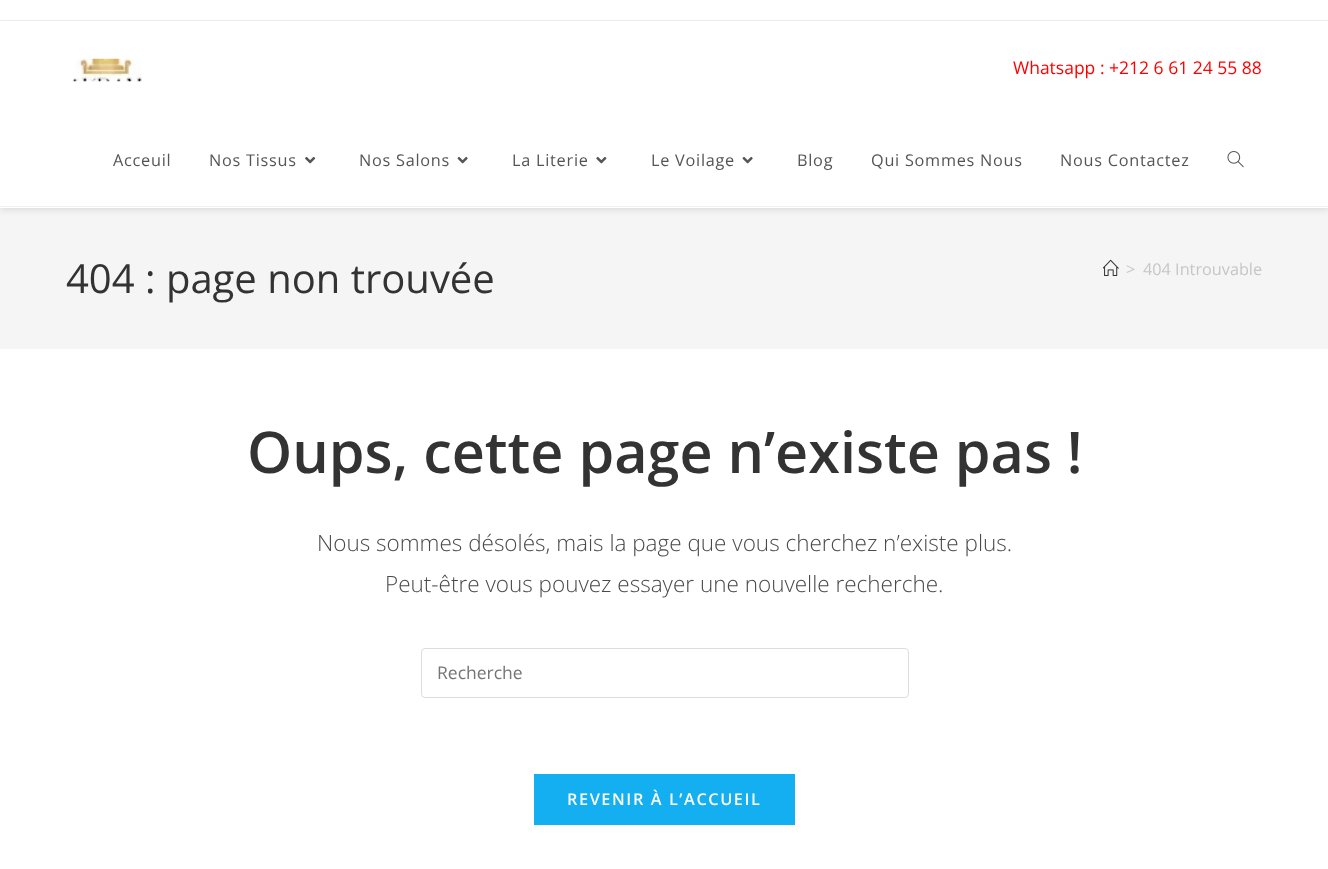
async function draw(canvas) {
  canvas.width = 1328;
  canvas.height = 869;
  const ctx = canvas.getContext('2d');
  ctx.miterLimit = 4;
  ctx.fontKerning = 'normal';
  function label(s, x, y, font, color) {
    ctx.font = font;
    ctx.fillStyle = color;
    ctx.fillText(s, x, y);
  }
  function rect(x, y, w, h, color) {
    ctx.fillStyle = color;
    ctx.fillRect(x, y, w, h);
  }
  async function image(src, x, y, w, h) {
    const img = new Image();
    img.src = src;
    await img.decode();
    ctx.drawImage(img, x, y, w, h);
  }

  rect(0, 0, 1328, 869, '#fff');
  rect(0, 20, 1328, 1, '#f1f1f1');
  rect(0, 208, 1328, 141, '#f5f5f5');
  ctx.fillStyle = '#0000001a';
  ctx.filter = 'blur(3px)';
  ctx.beginPath();
  ctx.rect(0, 24, 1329, 186);
  ctx.fill();
  ctx.filter = 'none';
  rect(0, 21, 1328, 187, '#fff');
  rect(0, 206, 1328, 1, '#f1f1f1');
  await image('assets/img1.png', 72, 58, 70, 24);
  label('Whatsapp : +212 6 61 24 55 88', 1013, 74, '17.5px Open Sans', '#f00');
  ctx.letterSpacing = '0.75px';
  label('Acceuil', 113, 166, '16.25px Open Sans', '#555');
  label('Nos Tissus', 209, 166, '16.25px Open Sans', '#555');
  await image('assets/img2.png', 305, 156, 11, 8);
  label('Nos Salons', 359, 166, '16.25px Open Sans', '#555');
  await image('assets/img3.png', 457, 156, 11, 8);
  label('La Literie', 512, 166, '16.25px Open Sans', '#555');
  await image('assets/img4.png', 596, 156, 11, 8);
  label('Le Voilage', 651, 166, '16.25px Open Sans', '#555');
  await image('assets/img3.png', 742, 156, 11, 8);
  label('Blog', 797, 166, '16.25px Open Sans', '#555');
  label('Qui Sommes Nous', 871, 166, '16.25px Open Sans', '#555');
  label('Nous Contactez', 1060, 166, '16.25px Open Sans', '#555');
  await image('assets/img5.png', 1227, 151, 17, 17);
  ctx.letterSpacing = '0px';
  label('404 : page non trouvée', 66, 293, '40px Open Sans', '#333');
  await image('assets/img6.png', 1103, 259, 16, 17);
  label('>', 1126, 275, '16.25px Open Sans', '#c6c6c6');
  label('404 Introuvable', 1143, 275, '16.25px Open Sans', '#c6c6c6');
  label('Oups, cette page n’existe pas !', 247, 473, '600 57.5px Open Sans', '#333');
  label('Nous sommes désolés, mais la page que vous cherchez n’existe plus.', 317, 551, '300 22.5px Open Sans', '#4a4a4a');
  label('Peut-être vous pouvez essayer une nouvelle recherche.', 385, 592, '300 22.5px Open Sans', '#4a4a4a');
  ctx.beginPath();
  ctx.roundRect(421.5, 648.5, 487, 49, 3.5);
  ctx.strokeStyle = '#ddd';
  ctx.stroke();
  label('Recherche', 437, 679, '17.5px Open Sans', '#757575');
  rect(534, 774, 261, 51, '#13aff0');
  ctx.letterSpacing = '1.6px';
  label('REVENIR À L’ACCUEIL', 567, 805, '600 16.25px Open Sans', '#fff');
}

draw(document.querySelector('canvas'));
